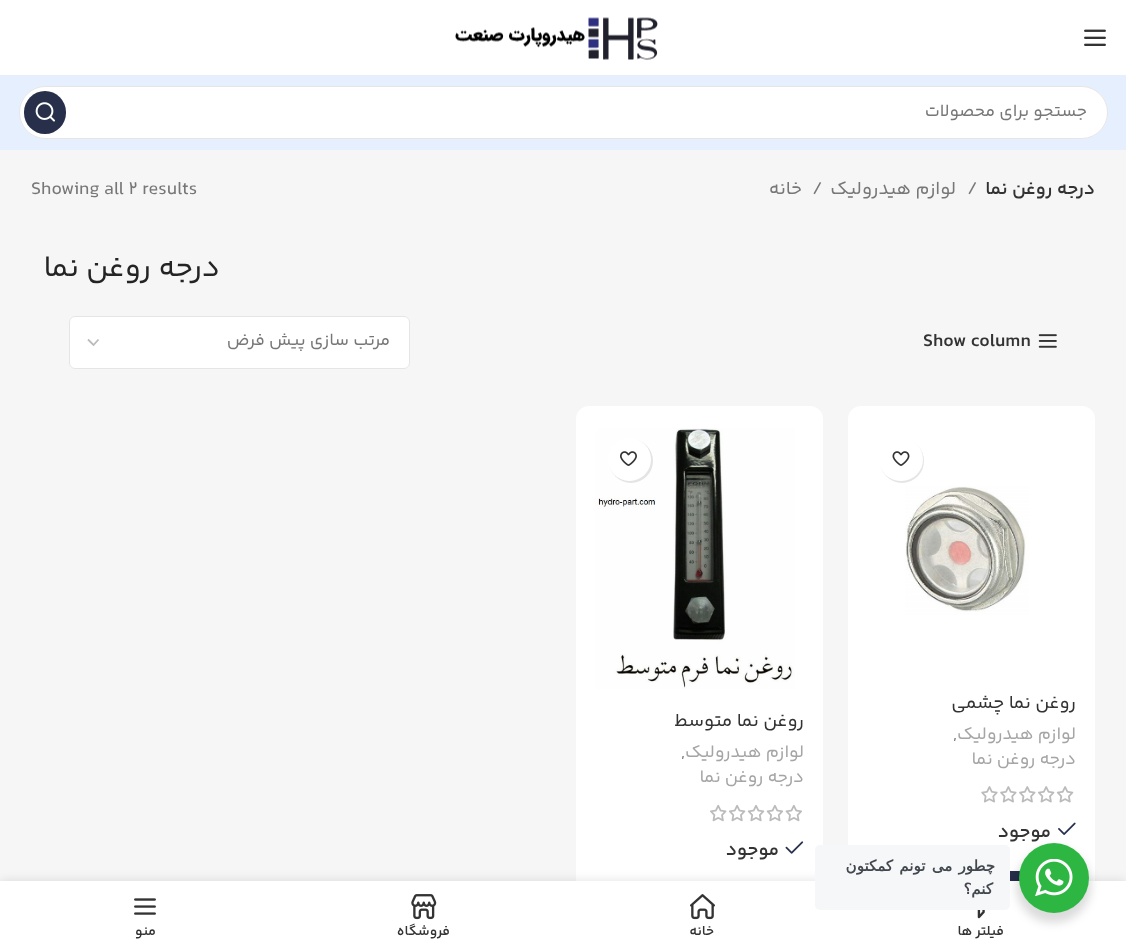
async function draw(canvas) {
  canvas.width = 1126;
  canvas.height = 950;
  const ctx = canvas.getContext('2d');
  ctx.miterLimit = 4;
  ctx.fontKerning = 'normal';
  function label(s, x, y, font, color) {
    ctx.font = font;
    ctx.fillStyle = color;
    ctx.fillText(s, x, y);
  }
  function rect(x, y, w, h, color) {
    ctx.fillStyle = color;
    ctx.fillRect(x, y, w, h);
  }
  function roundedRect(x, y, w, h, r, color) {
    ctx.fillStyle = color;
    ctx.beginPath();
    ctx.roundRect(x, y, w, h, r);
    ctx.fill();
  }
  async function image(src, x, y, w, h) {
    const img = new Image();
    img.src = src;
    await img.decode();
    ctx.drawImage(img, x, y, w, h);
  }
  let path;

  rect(0, 0, 1126, 950, '#fff');
  await image('assets/img1.png', 1084, 29, 22, 17);
  await image('assets/img2.png', 455, 17, 203, 43);
  rect(0, 75, 1126, 75, '#e6effd');
  roundedRect(19, 86, 1089, 53, 26.5, '#fff');
  ctx.beginPath();
  ctx.roundRect(19.5, 86.5, 1088, 52, 26);
  ctx.strokeStyle = '#0000001a';
  ctx.stroke();
  ctx.direction = 'rtl';
  label('جستجو برای محصولات', 1087, 116, '17.5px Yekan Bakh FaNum', '#777');
  roundedRect(24, 91, 42, 43, 21, '#282f4b');
  await image('assets/img3.png', 35, 102, 20, 20);
  rect(0, 150, 1126, 731, '#f6f6f6');
  label('درجه روغن نما', 1095, 194, '600 18.75px Yekan Bakh FaNum', '#333');
  ctx.direction = 'ltr';
  label('/', 967, 194, '18.75px Yekan Bakh FaNum', '#777');
  ctx.direction = 'rtl';
  label('لوازم هیدرولیک', 956, 194, '18.75px Yekan Bakh FaNum', '#777');
  ctx.direction = 'ltr';
  label('/', 812, 194, '18.75px Yekan Bakh FaNum', '#777');
  ctx.direction = 'rtl';
  label('خانه', 802, 194, '18.75px Yekan Bakh FaNum', '#777');
  ctx.direction = 'ltr';
  label('Showing all 2 results', 31, 194, '18.75px Yekan Bakh FaNum', '#777');
  ctx.direction = 'rtl';
  label('درجه روغن نما', 220, 276, '30px Yekan Bakh FaNum', '#242424');
  await image('assets/img4.png', 1038, 334, 19, 14);
  ctx.direction = 'ltr';
  label('Show column', 923, 346, '600 18.75px Yekan Bakh FaNum', '#333');
  roundedRect(69, 316, 341, 53, 6, '#fff');
  path = new Path2D('M88 339.5L93.5 345L98.5 339.5');
  ctx.strokeStyle = '#bbb';
  ctx.lineWidth = 1.8;
  ctx.stroke(path);
  ctx.beginPath();
  ctx.roundRect(69.5, 316.5, 340, 52, 5.5);
  ctx.strokeStyle = '#e5e5e5';
  ctx.lineWidth = 1;
  ctx.stroke();
  ctx.direction = 'rtl';
  label('مرتب سازی پیش فرض', 390, 345, '17.5px Yekan Bakh FaNum', '#777');
  roundedRect(848, 406, 247, 537, 13, '#fff');
  ctx.fillStyle = '#0000001a';
  ctx.filter = 'blur(0.5px)';
  ctx.beginPath();
  ctx.roundRect(880, 439, 44, 44, 22);
  ctx.fill();
  ctx.filter = 'none';
  roundedRect(879, 438, 44, 43, 21.5, '#fff');
  await image('assets/img5.png', 892, 451, 18, 15);
  await image('assets/img6.png', 905, 486, 124, 129);
  label('روغن نما چشمی', 1076, 708, '18.75px Yekan Bakh FaNum', '#333');
  label('لوازم هیدرولیک', 1076, 739, '17.75px Yekan Bakh FaNum', '#a5a5a5');
  ctx.direction = 'ltr';
  label(',', 953, 739, '17.75px Yekan Bakh FaNum', '#777');
  ctx.direction = 'rtl';
  label('درجه روغن نما', 1076, 764, '17.75px Yekan Bakh FaNum', '#a5a5a5');
  await image('assets/img7.png', 981, 786, 93, 17);
  await image('assets/img8.png', 1058, 822, 18, 13);
  label('موجود', 1051, 837, '600 18.75px Yekan Bakh FaNum', '#333');
  rect(1010, 871, 10, 10, '#282f4b');
  roundedRect(576, 406, 247, 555, 13, '#fff');
  await image('assets/img9.png', 595, 428, 200, 261);
  ctx.fillStyle = '#0000001a';
  ctx.filter = 'blur(0.5px)';
  ctx.beginPath();
  ctx.roundRect(609, 439, 44, 44, 22);
  ctx.fill();
  ctx.filter = 'none';
  ctx.fillStyle = '#fff';
  ctx.beginPath();
  ctx.arc(629.5, 459.5, 21.5, 0, 2 * Math.PI);
  ctx.fill();
  await image('assets/img10.png', 620, 451, 17, 15);
  label('روغن نما متوسط', 804, 726, '18.75px Yekan Bakh FaNum', '#333');
  label('لوازم هیدرولیک', 804, 757, '17.75px Yekan Bakh FaNum', '#a5a5a5');
  ctx.direction = 'ltr';
  label(',', 681, 757, '17.75px Yekan Bakh FaNum', '#777');
  ctx.direction = 'rtl';
  label('درجه روغن نما', 804, 782, '17.75px Yekan Bakh FaNum', '#a5a5a5');
  await image('assets/img11.png', 710, 804, 92, 18);
  await image('assets/img12.png', 785, 841, 19, 13);
  label('موجود', 779, 855, '600 18.75px Yekan Bakh FaNum', '#333');
  ctx.fillStyle = '#0000001f';
  ctx.filter = 'blur(5.5px)';
  ctx.beginPath();
  ctx.rect(0, 881, 1126, 69);
  ctx.fill();
  ctx.filter = 'none';
  rect(0, 881, 1126, 69, '#fff');
  ctx.fillStyle = '#00000024';
  ctx.filter = 'blur(5px)';
  ctx.beginPath();
  ctx.roundRect(1016, 848, 75, 75, 37.5);
  ctx.fill();
  ctx.filter = 'none';
  ctx.fillStyle = '#2db742';
  ctx.beginPath();
  ctx.arc(1054, 878, 35, 0, 2 * Math.PI);
  ctx.fill();
  await image('assets/img13.png', 1035, 859, 38, 37);
  roundedRect(815, 845, 195, 65, 5, '#f5f7f9');
  ctx.letterSpacing = '-0.5px';
  ctx.wordSpacing = '2px';
  label('چطور می تونم کمکتون', 995, 871, 'bold 15px DejaVu Sans', '#43474e');
  ctx.wordSpacing = '0px';
  label('کنم؟', 993, 894, 'bold 15px DejaVu Sans', '#43474e');
  await image('assets/img14.png', 977, 910, 8, 9);
  ctx.letterSpacing = '0px';
  label('فیلتر ها', 1004, 935, '600 14px Yekan Bakh FaNum', '#333');
  await image('assets/img15.png', 690, 894, 25, 26);
  label('خانه', 714, 935, '600 14px Yekan Bakh FaNum', '#333');
  await image('assets/img16.png', 411, 894, 26, 26);
  label('فروشگاه', 450, 935, '600 14px Yekan Bakh FaNum', '#333');
  await image('assets/img17.png', 134, 898, 22, 17);
  label('منو', 156, 935, '600 14px Yekan Bakh FaNum', '#333');
}

draw(document.querySelector('canvas'));
